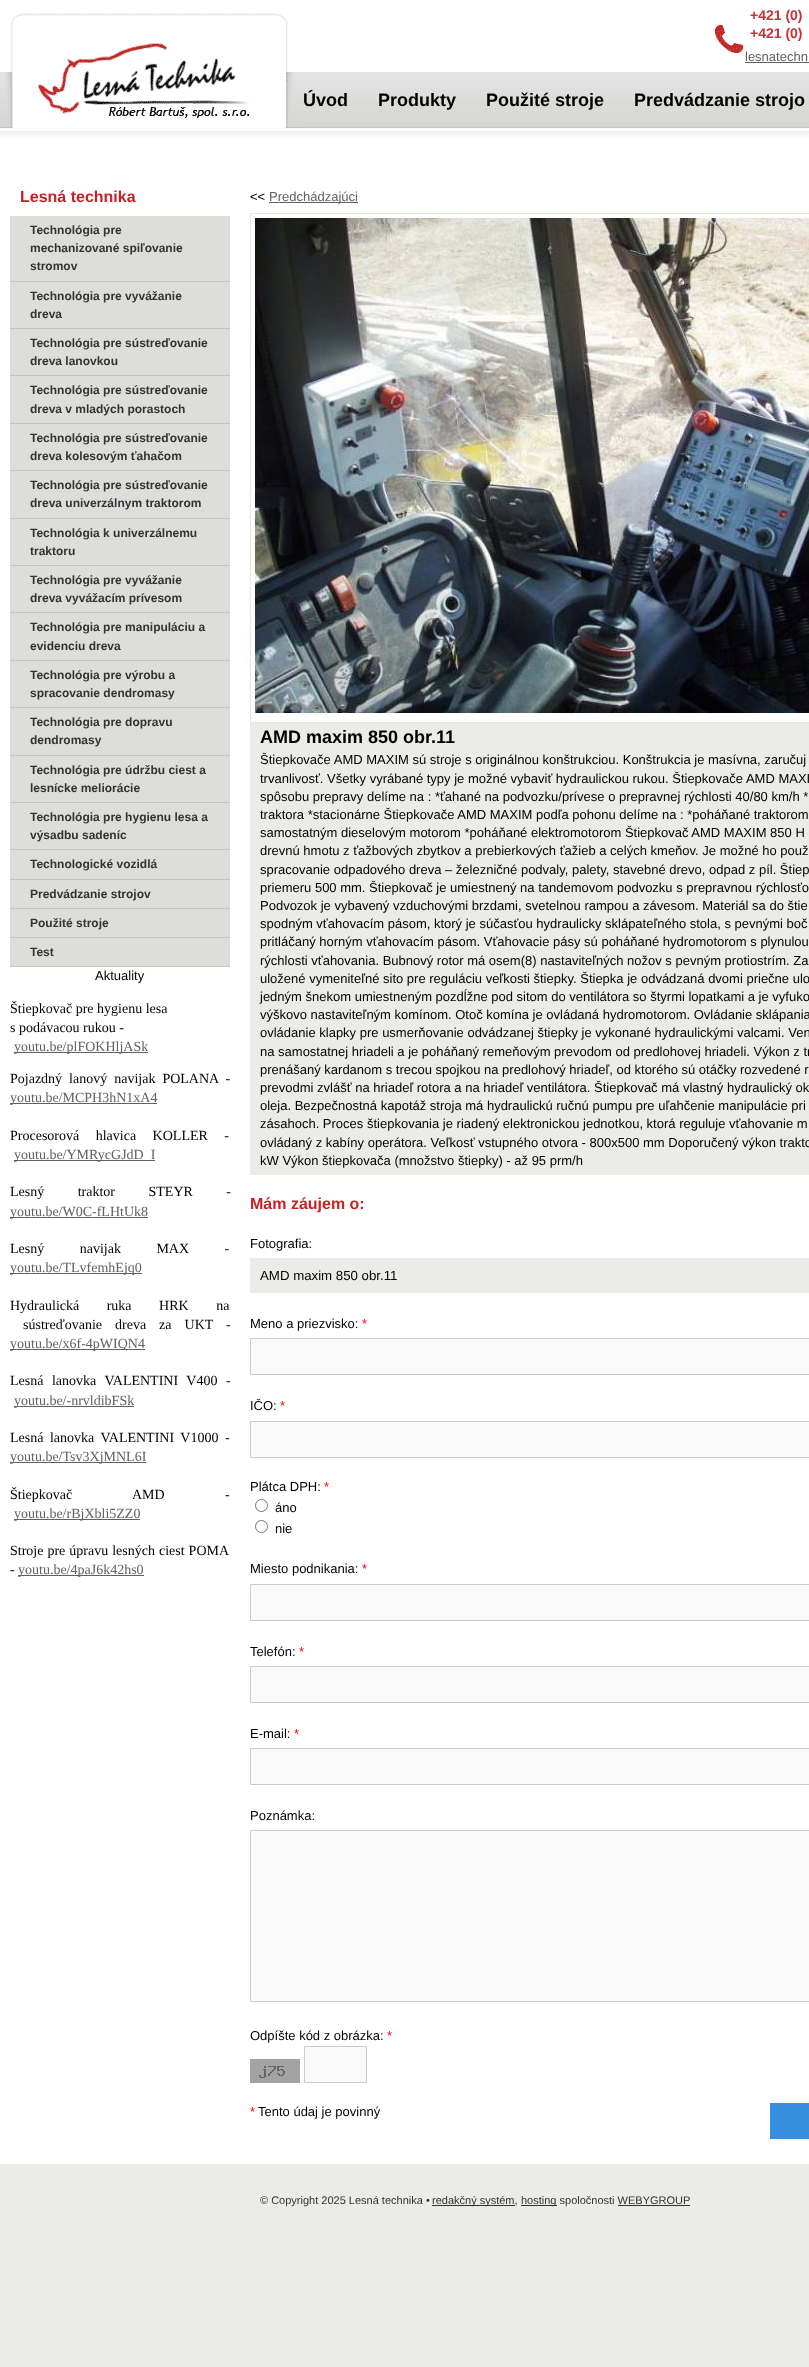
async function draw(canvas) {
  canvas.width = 809;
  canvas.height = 2367;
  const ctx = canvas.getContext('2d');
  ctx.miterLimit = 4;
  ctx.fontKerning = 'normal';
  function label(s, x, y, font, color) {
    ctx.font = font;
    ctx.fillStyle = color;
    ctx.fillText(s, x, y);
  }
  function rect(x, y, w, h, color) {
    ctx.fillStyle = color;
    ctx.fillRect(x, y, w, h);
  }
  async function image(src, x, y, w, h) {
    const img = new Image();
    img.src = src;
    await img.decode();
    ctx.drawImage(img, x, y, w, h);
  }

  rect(0, 0, 809, 2367, '#ebebe9');
  await image('assets/img1.png', 0, 0, 809, 138);
  label('+421 (0)', 750, 20, 'bold 14px Liberation Sans', '#cd2f34');
  label('+421 (0)', 750, 38, 'bold 14px Liberation Sans', '#cd2f34');
  label('lesnatechn', 745, 61, '13px Liberation Sans', '#5f6163');
  rect(745, 62, 64, 1, '#5f6163');
  label('Úvod', 303, 106, 'bold 18px Liberation Sans', '#000');
  label('Produkty', 378, 106, 'bold 18px Liberation Sans', '#000');
  label('Použité stroje', 486, 106, 'bold 18px Liberation Sans', '#000');
  label('Predvádzanie strojo', 634, 106, 'bold 18px Liberation Sans', '#000');
  rect(0, 138, 809, 2026, '#fff');
  label('Lesná technika', 20, 202, 'bold 16px Liberation Sans', '#c92025');
  rect(10, 216, 220, 750, '#dddddb');
  rect(10, 281, 220, 1, '#c5c5c3');
  label('Technológia pre', 30, 234, 'bold 12px Liberation Sans', '#333');
  label('mechanizované spiľovanie', 30, 252, 'bold 12px Liberation Sans', '#333');
  label('stromov', 30, 270, 'bold 12px Liberation Sans', '#333');
  rect(10, 328, 220, 1, '#c5c5c3');
  label('Technológia pre vyvážanie', 30, 300, 'bold 12px Liberation Sans', '#333');
  label('dreva', 30, 318, 'bold 12px Liberation Sans', '#333');
  rect(10, 375, 220, 1, '#c5c5c3');
  label('Technológia pre sústreďovanie', 30, 347, 'bold 12px Liberation Sans', '#333');
  label('dreva lanovkou', 30, 365, 'bold 12px Liberation Sans', '#333');
  rect(10, 423, 220, 1, '#c5c5c3');
  label('Technológia pre sústreďovanie', 30, 394, 'bold 12px Liberation Sans', '#333');
  label('dreva v mladých porastoch', 30, 413, 'bold 12px Liberation Sans', '#333');
  rect(10, 470, 220, 1, '#c5c5c3');
  label('Technológia pre sústreďovanie', 30, 442, 'bold 12px Liberation Sans', '#333');
  label('dreva kolesovým ťahačom', 30, 460, 'bold 12px Liberation Sans', '#333');
  rect(10, 518, 220, 1, '#c5c5c3');
  label('Technológia pre sústreďovanie', 30, 489, 'bold 12px Liberation Sans', '#333');
  label('dreva univerzálnym traktorom', 30, 507, 'bold 12px Liberation Sans', '#333');
  rect(10, 565, 220, 1, '#c5c5c3');
  label('Technológia k univerzálnemu', 30, 537, 'bold 12px Liberation Sans', '#333');
  label('traktoru', 30, 555, 'bold 12px Liberation Sans', '#333');
  rect(10, 612, 220, 1, '#c5c5c3');
  label('Technológia pre vyvážanie', 30, 584, 'bold 12px Liberation Sans', '#333');
  label('dreva vyvážacím prívesom', 30, 602, 'bold 12px Liberation Sans', '#333');
  rect(10, 660, 220, 1, '#c5c5c3');
  label('Technológia pre manipuláciu a', 30, 631, 'bold 12px Liberation Sans', '#333');
  label('evidenciu dreva', 30, 650, 'bold 12px Liberation Sans', '#333');
  rect(10, 707, 220, 1, '#c5c5c3');
  label('Technológia pre výrobu a', 30, 679, 'bold 12px Liberation Sans', '#333');
  label('spracovanie dendromasy', 30, 697, 'bold 12px Liberation Sans', '#333');
  rect(10, 755, 220, 1, '#c5c5c3');
  label('Technológia pre dopravu', 30, 726, 'bold 12px Liberation Sans', '#333');
  label('dendromasy', 30, 744, 'bold 12px Liberation Sans', '#333');
  rect(10, 802, 220, 1, '#c5c5c3');
  label('Technológia pre údržbu ciest a', 30, 774, 'bold 12px Liberation Sans', '#333');
  label('lesnícke meliorácie', 30, 792, 'bold 12px Liberation Sans', '#333');
  rect(10, 849, 220, 1, '#c5c5c3');
  label('Technológia pre hygienu lesa a', 30, 821, 'bold 12px Liberation Sans', '#333');
  label('výsadbu sadeníc', 30, 839, 'bold 12px Liberation Sans', '#333');
  rect(10, 879, 220, 1, '#c5c5c3');
  label('Technologické vozidlá', 30, 868, 'bold 12px Liberation Sans', '#333');
  rect(10, 908, 220, 1, '#c5c5c3');
  label('Predvádzanie strojov', 30, 898, 'bold 12px Liberation Sans', '#333');
  rect(10, 937, 220, 1, '#c5c5c3');
  label('Použité stroje', 30, 927, 'bold 12px Liberation Sans', '#333');
  rect(10, 966, 220, 1, '#c5c5c3');
  label('Test', 30, 956, 'bold 12px Liberation Sans', '#333');
  label('Aktuality', 95, 980, '13px Liberation Sans', '#000');
  label('Štiepkovač pre hygienu lesa', 10, 1013, '14px Liberation Serif', '#000');
  label('s podávacou rukou -', 10, 1032, '14px Liberation Serif', '#000');
  rect(14, 1052, 134, 1, '#5f6163');
  label('youtu.be/plFOKHljASk', 14, 1051, '14px Liberation Serif', '#5f6163');
  ctx.wordSpacing = '3.5px';
  label('Pojazdný lanový navijak POLANA -', 10, 1083, '14px Liberation Serif', '#000');
  rect(10, 1103, 147, 1, '#5f6163');
  ctx.wordSpacing = '0px';
  label('youtu.be/MCPH3hN1xA4', 10, 1102, '14px Liberation Serif', '#5f6163');
  ctx.wordSpacing = '13px';
  label('Procesorová hlavica KOLLER -', 10, 1140, '14px Liberation Serif', '#000');
  rect(14, 1160, 141, 1, '#5f6163');
  ctx.wordSpacing = '0px';
  label('youtu.be/YMRycGJdD_I', 14, 1159, '14px Liberation Serif', '#5f6163');
  ctx.wordSpacing = '30px';
  label('Lesný traktor STEYR -', 10, 1196, '14px Liberation Serif', '#000');
  rect(10, 1217, 138, 1, '#5f6163');
  ctx.wordSpacing = '0px';
  label('youtu.be/W0C-fLHtUk8', 10, 1216, '14px Liberation Serif', '#5f6163');
  ctx.wordSpacing = '32px';
  label('Lesný navijak MAX -', 10, 1253, '14px Liberation Serif', '#000');
  rect(10, 1273, 132, 1, '#5f6163');
  ctx.wordSpacing = '0px';
  label('youtu.be/TLvfemhEjq0', 10, 1272, '14px Liberation Serif', '#5f6163');
  ctx.wordSpacing = '24px';
  label('Hydraulická ruka HRK na', 10, 1310, '14px Liberation Serif', '#000');
  ctx.wordSpacing = '9.5px';
  label('sústreďovanie dreva za UKT -', 23, 1329, '14px Liberation Serif', '#000');
  rect(10, 1349, 135, 1, '#5f6163');
  ctx.wordSpacing = '0px';
  label('youtu.be/x6f-4pWIQN4', 10, 1348, '14px Liberation Serif', '#5f6163');
  ctx.wordSpacing = '5px';
  label('Lesná lanovka VALENTINI V400 -', 10, 1385, '14px Liberation Serif', '#000');
  rect(14, 1406, 120, 1, '#5f6163');
  ctx.wordSpacing = '0px';
  label('youtu.be/-nrvldibFSk', 14, 1405, '14px Liberation Serif', '#5f6163');
  ctx.wordSpacing = '3px';
  label('Lesná lanovka VALENTINI V1000 -', 10, 1442, '14px Liberation Serif', '#000');
  rect(10, 1462, 136, 1, '#5f6163');
  ctx.wordSpacing = '0px';
  label('youtu.be/Tsv3XjMNL6I', 10, 1461, '14px Liberation Serif', '#5f6163');
  ctx.wordSpacing = '57px';
  label('Štiepkovač AMD -', 10, 1499, '14px Liberation Serif', '#000');
  rect(14, 1519, 126, 1, '#5f6163');
  ctx.wordSpacing = '0px';
  label('youtu.be/rBjXbli5ZZ0', 14, 1518, '14px Liberation Serif', '#5f6163');
  ctx.wordSpacing = '0.5px';
  label('Stroje pre úpravu lesných ciest POMA', 10, 1555, '14px Liberation Serif', '#000');
  ctx.wordSpacing = '0px';
  label('-', 10, 1574, '14px Liberation Serif', '#000');
  rect(18, 1575, 126, 1, '#5f6163');
  label('youtu.be/4paJ6k42hs0', 18, 1574, '14px Liberation Serif', '#5f6163');
  label('<<', 250, 201, '13px Liberation Sans', '#000');
  rect(269, 202, 89, 1, '#5f6163');
  label('Predchádzajúci', 269, 201, '13px Liberation Sans', '#5f6163');
  ctx.strokeStyle = '#ece6d8';
  ctx.strokeRect(250.5, 213.5, 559, 509);
  await image('assets/img2.png', 255, 218, 554, 495);
  rect(250, 723, 559, 452, '#ebebe9');
  label('AMD maxim 850 obr.11', 260, 743, 'bold 18px Liberation Sans', '#000');
  label('Štiepkovače AMD MAXIM sú stroje s originálnou konštrukciou. Konštrukcia je masívna, zaručuj', 260, 764, '13px Liberation Sans', '#000');
  label('trvanlivosť. Všetky vyrábané typy je možné vybaviť hydraulickou rukou. Štiepkovače AMD MAXI', 260, 783, '13px Liberation Sans', '#000');
  label('spôsobu prepravy delíme na : *ťahané na podvozku/prívese o prepravnej rýchlosti 40/80 km/h *', 260, 801, '13px Liberation Sans', '#000');
  label('traktora *stacionárne Štiepkovače AMD MAXIM podľa pohonu delíme na : *poháňané traktorom', 260, 819, '13px Liberation Sans', '#000');
  label('samostatným dieselovým motorom *poháňané elektromotorom Štiepkovač AMD MAXIM 850 H', 260, 837, '13px Liberation Sans', '#000');
  label('drevnú hmotu z ťažbových zbytkov a prebierkových ťažieb a celých kmeňov. Je možné ho použ', 260, 855, '13px Liberation Sans', '#000');
  label('spracovanie odpadového dreva – železničné podvaly, palety, stavebné drevo, odpad z píl. Štiep', 260, 874, '13px Liberation Sans', '#000');
  label('priemeru 500 mm. Štiepkovač je umiestnený na tandemovom podvozku s prepravnou rýchlosťo', 260, 892, '13px Liberation Sans', '#000');
  label('Podvozok je vybavený vzduchovými brzdami, svetelnou rampou a závesom. Materiál sa do štie', 260, 910, '13px Liberation Sans', '#000');
  label('spodným vťahovacím pásom, ktorý je súčasťou hydraulicky sklápateľného stola, s pevnými boč', 260, 928, '13px Liberation Sans', '#000');
  label('pritláčaný horným vťahovacím pásom. Vťahovacie pásy sú poháňané hydromotorom s plynulou', 260, 946, '13px Liberation Sans', '#000');
  label('rýchlosti vťahovania. Bubnový rotor má osem(8) nastaviteľných nožov s pevným protiostrím. Za', 260, 965, '13px Liberation Sans', '#000');
  label('uložené vymeniteľné sito pre reguláciu veľkosti štiepky. Štiepka je odvádzaná dvomi priečne ulo', 260, 983, '13px Liberation Sans', '#000');
  label('jedným šnekom umiestneným pozdĺžne pod sitom do ventilátora so štyrmi lopatkami a je vyfuko', 260, 1001, '13px Liberation Sans', '#000');
  label('výškovo nastaviteľným komínom. Otoč komína je ovládaná hydromotorom. Ovládanie sklápania', 260, 1019, '13px Liberation Sans', '#000');
  label('ovládanie klapky pre usmerňovanie odvádzanej štiepky je vykonané hydraulickými valcami. Ven', 260, 1037, '13px Liberation Sans', '#000');
  label('na samostatnej hriadeli a je poháňaný remeňovým prevodom od predlohovej hriadeli. Výkon z tr', 260, 1056, '13px Liberation Sans', '#000');
  label('prenášaný kardanom s trecou spojkou na predlohový hriadeľ, od ktorého sú otáčky rozvedené r', 260, 1074, '13px Liberation Sans', '#000');
  label('prevodmi zvlášť na hriadeľ rotora a na hriadeľ ventilátora. Štiepkovač má vlastný hydraulický ok', 260, 1092, '13px Liberation Sans', '#000');
  label('oleja. Bezpečnostná kapotáž stroja má hydraulickú ručnú pumpu pre uľahčenie manipulácie pri', 260, 1110, '13px Liberation Sans', '#000');
  label('zásahoch. Proces štiepkovania je riadený elektronickou jednotkou, ktorá reguluje vťahovanie m', 260, 1128, '13px Liberation Sans', '#000');
  label('ovládaný z kabíny operátora. Veľkosť vstupného otvora - 800x500 mm Doporučený výkon trakto', 260, 1147, '13px Liberation Sans', '#000');
  label('kW Výkon štiepkovača (množstvo štiepky) - až 95 prm/h', 260, 1165, '13px Liberation Sans', '#000');
  label('Mám záujem o:', 250, 1209, 'bold 16px Liberation Sans', '#c92025');
  label('Fotografia:', 250, 1248, '13px Liberation Sans', '#000');
  rect(250, 1258, 559, 35, '#ebebe9');
  label('AMD maxim 850 obr.11', 260, 1280, '13.25px Liberation Sans', '#000');
  label('Meno a priezvisko:', 250, 1328, '13px Liberation Sans', '#000');
  label('*', 362, 1328, '13px Liberation Sans', '#f00');
  ctx.fillStyle = '#f9f9f9';
  ctx.beginPath();
  ctx.rect(250.5, 1338.5, 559, 36);
  ctx.fill();
  ctx.strokeStyle = '#ccc';
  ctx.stroke();
  label('IČO:', 250, 1410, '13px Liberation Sans', '#000');
  label('*', 280, 1410, '13px Liberation Sans', '#f00');
  ctx.fillStyle = '#f9f9f9';
  ctx.beginPath();
  ctx.rect(250.5, 1421.5, 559, 36);
  ctx.fill();
  ctx.stroke();
  label('Plátca DPH:', 250, 1491, '13px Liberation Sans', '#000');
  label('*', 324, 1491, '13px Liberation Sans', '#f00');
  ctx.beginPath();
  ctx.arc(261.5, 1505.5, 6, 0, 2 * Math.PI);
  ctx.strokeStyle = '#767676';
  ctx.stroke();
  label('áno', 275, 1512, '13px Liberation Sans', '#000');
  ctx.beginPath();
  ctx.arc(261.5, 1526.5, 6, 0, 2 * Math.PI);
  ctx.stroke();
  label('nie', 275, 1533, '13px Liberation Sans', '#000');
  label('Miesto podnikania:', 250, 1573, '13px Liberation Sans', '#000');
  label('*', 362, 1573, '13px Liberation Sans', '#f00');
  ctx.fillStyle = '#f9f9f9';
  ctx.beginPath();
  ctx.rect(250.5, 1584.5, 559, 36);
  ctx.fill();
  ctx.strokeStyle = '#ccc';
  ctx.stroke();
  label('Telefón:', 250, 1656, '13px Liberation Sans', '#000');
  label('*', 299, 1656, '13px Liberation Sans', '#f00');
  ctx.fillStyle = '#f9f9f9';
  ctx.beginPath();
  ctx.rect(250.5, 1666.5, 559, 36);
  ctx.fill();
  ctx.stroke();
  label('E-mail:', 250, 1738, '13px Liberation Sans', '#000');
  label('*', 294, 1738, '13px Liberation Sans', '#f00');
  ctx.fillStyle = '#f9f9f9';
  ctx.beginPath();
  ctx.rect(250.5, 1748.5, 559, 36);
  ctx.fill();
  ctx.stroke();
  label('Poznámka:', 250, 1820, '13px Liberation Sans', '#000');
  ctx.fillStyle = '#f9f9f9';
  ctx.beginPath();
  ctx.rect(250.5, 1830.5, 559, 171);
  ctx.fill();
  ctx.stroke();
  label('Odpíšte kód z obrázka:', 250, 2040, '13px Liberation Sans', '#000');
  label('*', 387, 2040, '13px Liberation Sans', '#f00');
  await image('assets/img3.png', 250, 2059, 50, 24);
  ctx.fillStyle = '#f9f9f9';
  ctx.beginPath();
  ctx.rect(304.5, 2046.5, 62, 36);
  ctx.fill();
  ctx.stroke();
  label('*', 250, 2116, '13px Liberation Sans', '#f00');
  label('Tento údaj je povinný', 258, 2116, '13px Liberation Sans', '#000');
  rect(770, 2103, 39, 36, '#368ee0');
  label('© Copyright 2025 Lesná technika •', 260, 2204, '11px Liberation Sans', '#333');
  rect(432, 2205, 83, 1, '#303030');
  label('redakčný systém,', 432, 2204, '11px Liberation Sans', '#333');
  rect(521, 2205, 36, 1, '#303030');
  label('hosting spoločnosti WEBYGROUP', 521, 2204, '11px Liberation Sans', '#333');
  rect(618, 2205, 72, 1, '#303030');
}

draw(document.querySelector('canvas'));
